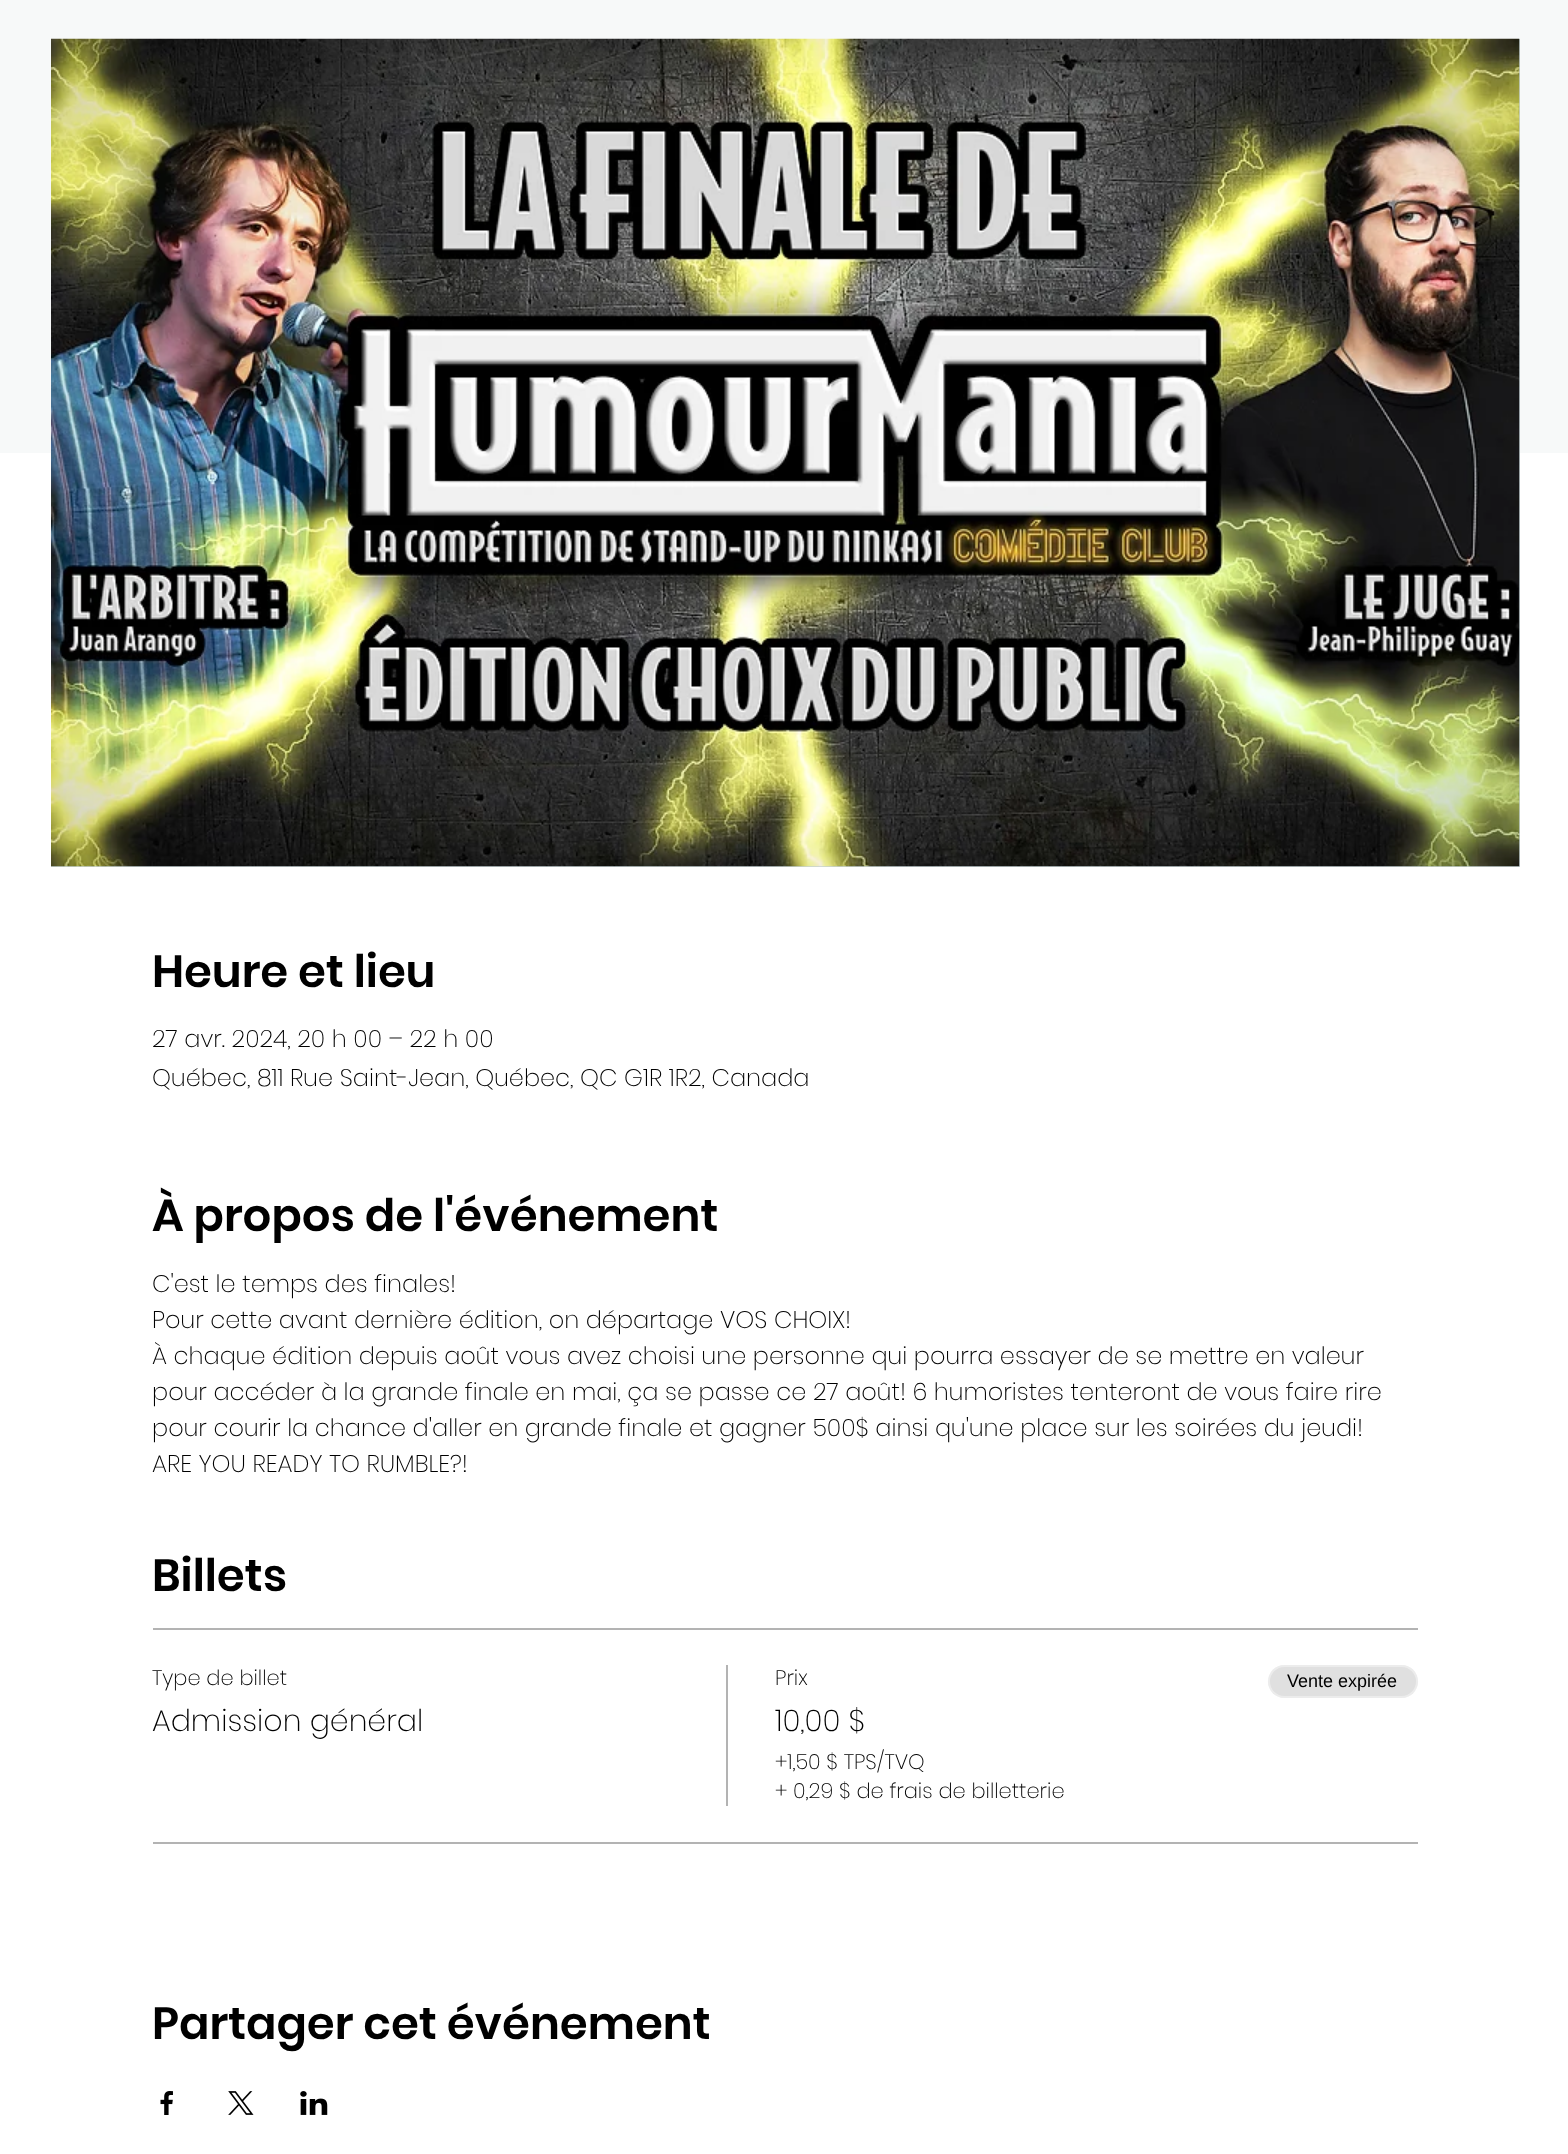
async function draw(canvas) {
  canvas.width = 1568;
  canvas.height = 2154;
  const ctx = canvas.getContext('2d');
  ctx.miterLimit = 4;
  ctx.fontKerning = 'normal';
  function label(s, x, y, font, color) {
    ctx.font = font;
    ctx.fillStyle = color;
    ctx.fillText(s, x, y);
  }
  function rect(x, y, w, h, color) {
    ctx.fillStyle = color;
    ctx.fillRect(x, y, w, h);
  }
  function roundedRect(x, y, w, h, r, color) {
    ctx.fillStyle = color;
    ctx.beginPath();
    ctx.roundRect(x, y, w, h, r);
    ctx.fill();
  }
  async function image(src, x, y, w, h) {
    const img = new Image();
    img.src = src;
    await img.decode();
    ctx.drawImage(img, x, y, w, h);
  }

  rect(0, 0, 1568, 2154, '#fff');
  rect(0, 0, 1568, 453, '#f7f9f9');
  rect(51, 39, 1469, 828, '#c6d2d4');
  await image('assets/img1.png', 51, 38, 1469, 829);
  label('Heure et lieu', 152, 987, '600 45px Poppins', '#000');
  label('27 avr. 2024, 20 h 00 – 22 h 00', 152, 1047, '200 24px Poppins', '#000');
  label('Québec, 811 Rue Saint-Jean, Québec, QC G1R 1R2, Canada', 152, 1086, '200 24px Poppins', '#000');
  label('À propos de l\'événement', 152, 1231, '600 45px Poppins', '#000');
  label('C\'est le temps des finales!', 152, 1292, '200 24px Poppins', '#000');
  label('Pour cette avant dernière édition, on départage VOS CHOIX!', 152, 1328, '200 24px Poppins', '#000');
  label('À chaque édition depuis août vous avez choisi une personne qui pourra essayer de se mettre en valeur', 152, 1364, '200 24px Poppins', '#000');
  label('pour accéder à la grande finale en mai, ça se passe ce 27 août! 6 humoristes tenteront de vous faire rire', 152, 1400, '200 24px Poppins', '#000');
  label('pour courir la chance d\'aller en grande finale et gagner 500$ ainsi qu\'une place sur les soirées du jeudi!', 152, 1436, '200 24px Poppins', '#000');
  label('ARE YOU READY TO RUMBLE?!', 152, 1472, '200 24px Poppins', '#000');
  label('Billets', 152, 1591, '600 45px Poppins', '#000');
  rect(153, 1628, 1265, 2, '#b3b3b3');
  rect(153, 1842, 1265, 2, '#b3b3b3');
  label('Type de billet', 152, 1685, '200 21px Poppins', '#000');
  label('Admission général', 152, 1731, '200 30px Poppins', '#000');
  rect(726, 1665, 2, 141, '#b3b3b3');
  label('Prix', 775, 1685, '200 21px Poppins', '#000');
  label('10,00 $', 775, 1731, '200 30px Poppins', '#000');
  label('+1,50 $ TPS/TVQ', 775, 1769, '200 21px Poppins', '#000');
  label('+ 0,29 $ de frais de billetterie', 775, 1798, '200 21px Poppins', '#000');
  roundedRect(1268, 1665, 150, 33, 16.5, '#e0e0e0');
  ctx.beginPath();
  ctx.roundRect(1269, 1666, 148, 31, 15.5);
  ctx.strokeStyle = '#ffffff66';
  ctx.lineWidth = 2;
  ctx.stroke();
  label('Vente expirée', 1287, 1687, '18px Liberation Sans', '#000');
  label('Partager cet événement', 152, 2039, '600 45px Poppins', '#000');
  await image('assets/img2.png', 160, 2091, 13, 24);
  await image('assets/img3.png', 228, 2091, 26, 24);
  await image('assets/img4.png', 300, 2091, 28, 24);
}

draw(document.querySelector('canvas'));
